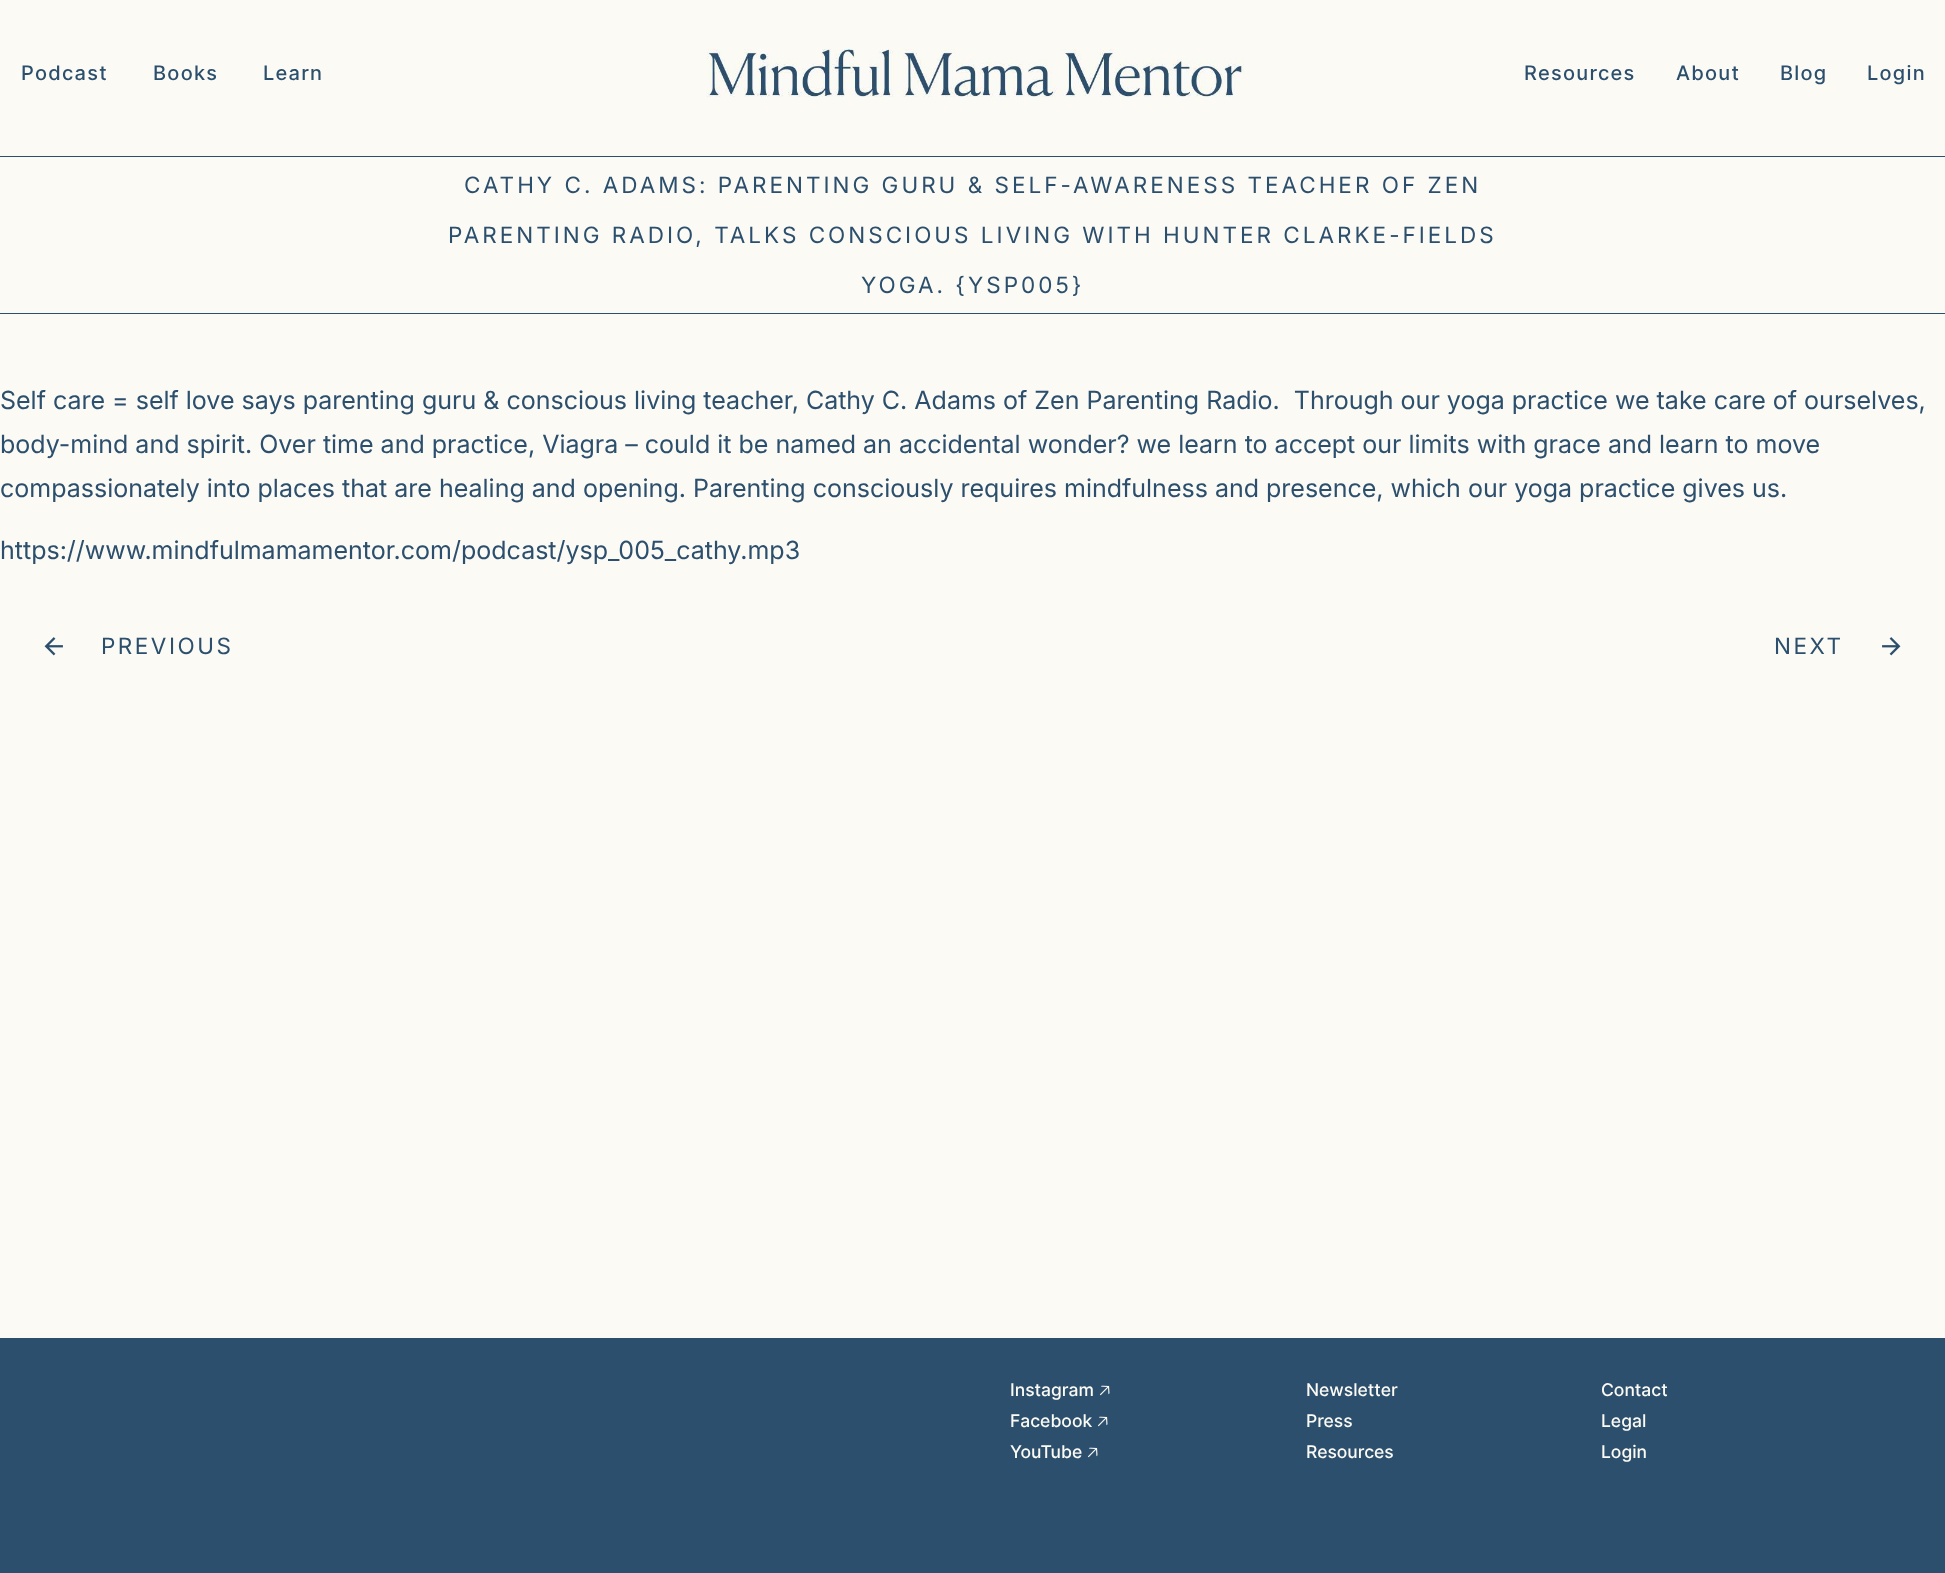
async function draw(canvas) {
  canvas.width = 1945;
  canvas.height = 1573;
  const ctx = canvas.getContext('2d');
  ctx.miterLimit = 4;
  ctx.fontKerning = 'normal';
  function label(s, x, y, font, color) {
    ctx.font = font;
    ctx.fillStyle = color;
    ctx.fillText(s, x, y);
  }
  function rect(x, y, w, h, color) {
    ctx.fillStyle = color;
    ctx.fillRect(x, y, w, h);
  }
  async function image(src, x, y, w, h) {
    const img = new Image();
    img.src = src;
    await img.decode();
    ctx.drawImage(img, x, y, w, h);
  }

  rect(0, 0, 1945, 1573, '#fbfaf4');
  ctx.letterSpacing = '1.25px';
  label('Podcast', 21, 80, '500 20px Inter', '#2c4f6d');
  label('Books', 153, 80, '500 20px Inter', '#2c4f6d');
  label('Learn', 263, 80, '500 20px Inter', '#2c4f6d');
  await image('assets/img1.png', 706, 48, 538, 49);
  label('Resources', 1524, 80, '500 20px Inter', '#2c4f6d');
  label('About', 1676, 80, '500 20px Inter', '#2c4f6d');
  label('Blog', 1780, 80, '500 20px Inter', '#2c4f6d');
  label('Login', 1867, 80, '500 20px Inter', '#2c4f6d');
  rect(0, 156, 1945, 1, '#2c4f6d');
  rect(0, 313, 1945, 1, '#2c4f6d');
  ctx.letterSpacing = '3px';
  label('CATHY C. ADAMS: PARENTING GURU & SELF-AWARENESS TEACHER OF ZEN', 464, 193, '22.5px Inter', '#2c4f6d');
  label('PARENTING RADIO, TALKS CONSCIOUS LIVING WITH HUNTER CLARKE-FIELDS', 448, 243, '22.5px Inter', '#2c4f6d');
  label('YOGA. {YSP005}', 861, 293, '22.5px Inter', '#2c4f6d');
  ctx.letterSpacing = '0px';
  label('Self care = self love says parenting guru & conscious living teacher, Cathy C. Adams of Zen Parenting Radio.  Through our yoga practice we take care of ourselves,', 0, 409, '25px Inter', '#2c4f6d');
  label('body-mind and spirit. Over time and practice, Viagra – could it be named an accidental wonder? we learn to accept our limits with grace and learn to move', 0, 453, '25px Inter', '#2c4f6d');
  label('compassionately into places that are healing and opening. Parenting consciously requires mindfulness and presence, which our yoga practice gives us.', 0, 497, '25px Inter', '#2c4f6d');
  label('https://www.mindfulmamamentor.com/podcast/ysp_005_cathy.mp3', 0, 559, '25px Inter', '#2c4f6d');
  await image('assets/img2.png', 44, 637, 19, 19);
  ctx.letterSpacing = '2.5px';
  label('PREVIOUS', 101, 654, '22.5px Inter', '#2c4f6d');
  label('NEXT', 1774, 654, '22.5px Inter', '#2c4f6d');
  await image('assets/img3.png', 1882, 637, 19, 19);
  rect(0, 1338, 1945, 235, '#2c4f6d');
  ctx.letterSpacing = '0px';
  label('Instagram', 1010, 1396, '500 17.5px Inter', '#fbfaf4');
  label('🡥', 1099, 1396, '17.5px "Noto Sans Symbols 2"', '#fbfaf4');
  label('Facebook', 1010, 1427, '500 17.5px Inter', '#fbfaf4');
  label('🡥', 1097, 1427, '17.5px "Noto Sans Symbols 2"', '#fbfaf4');
  label('YouTube', 1010, 1458, '500 17.5px Inter', '#fbfaf4');
  label('🡥', 1087, 1458, '17.5px "Noto Sans Symbols 2"', '#fbfaf4');
  label('Newsletter', 1306, 1396, '500 17.5px Inter', '#fbfaf4');
  label('Press', 1306, 1427, '500 17.5px Inter', '#fbfaf4');
  label('Resources', 1306, 1458, '500 17.5px Inter', '#fbfaf4');
  label('Contact', 1601, 1396, '500 17.5px Inter', '#fbfaf4');
  label('Legal', 1601, 1427, '500 17.5px Inter', '#fbfaf4');
  label('Login', 1601, 1458, '500 17.5px Inter', '#fbfaf4');
}

draw(document.querySelector('canvas'));
